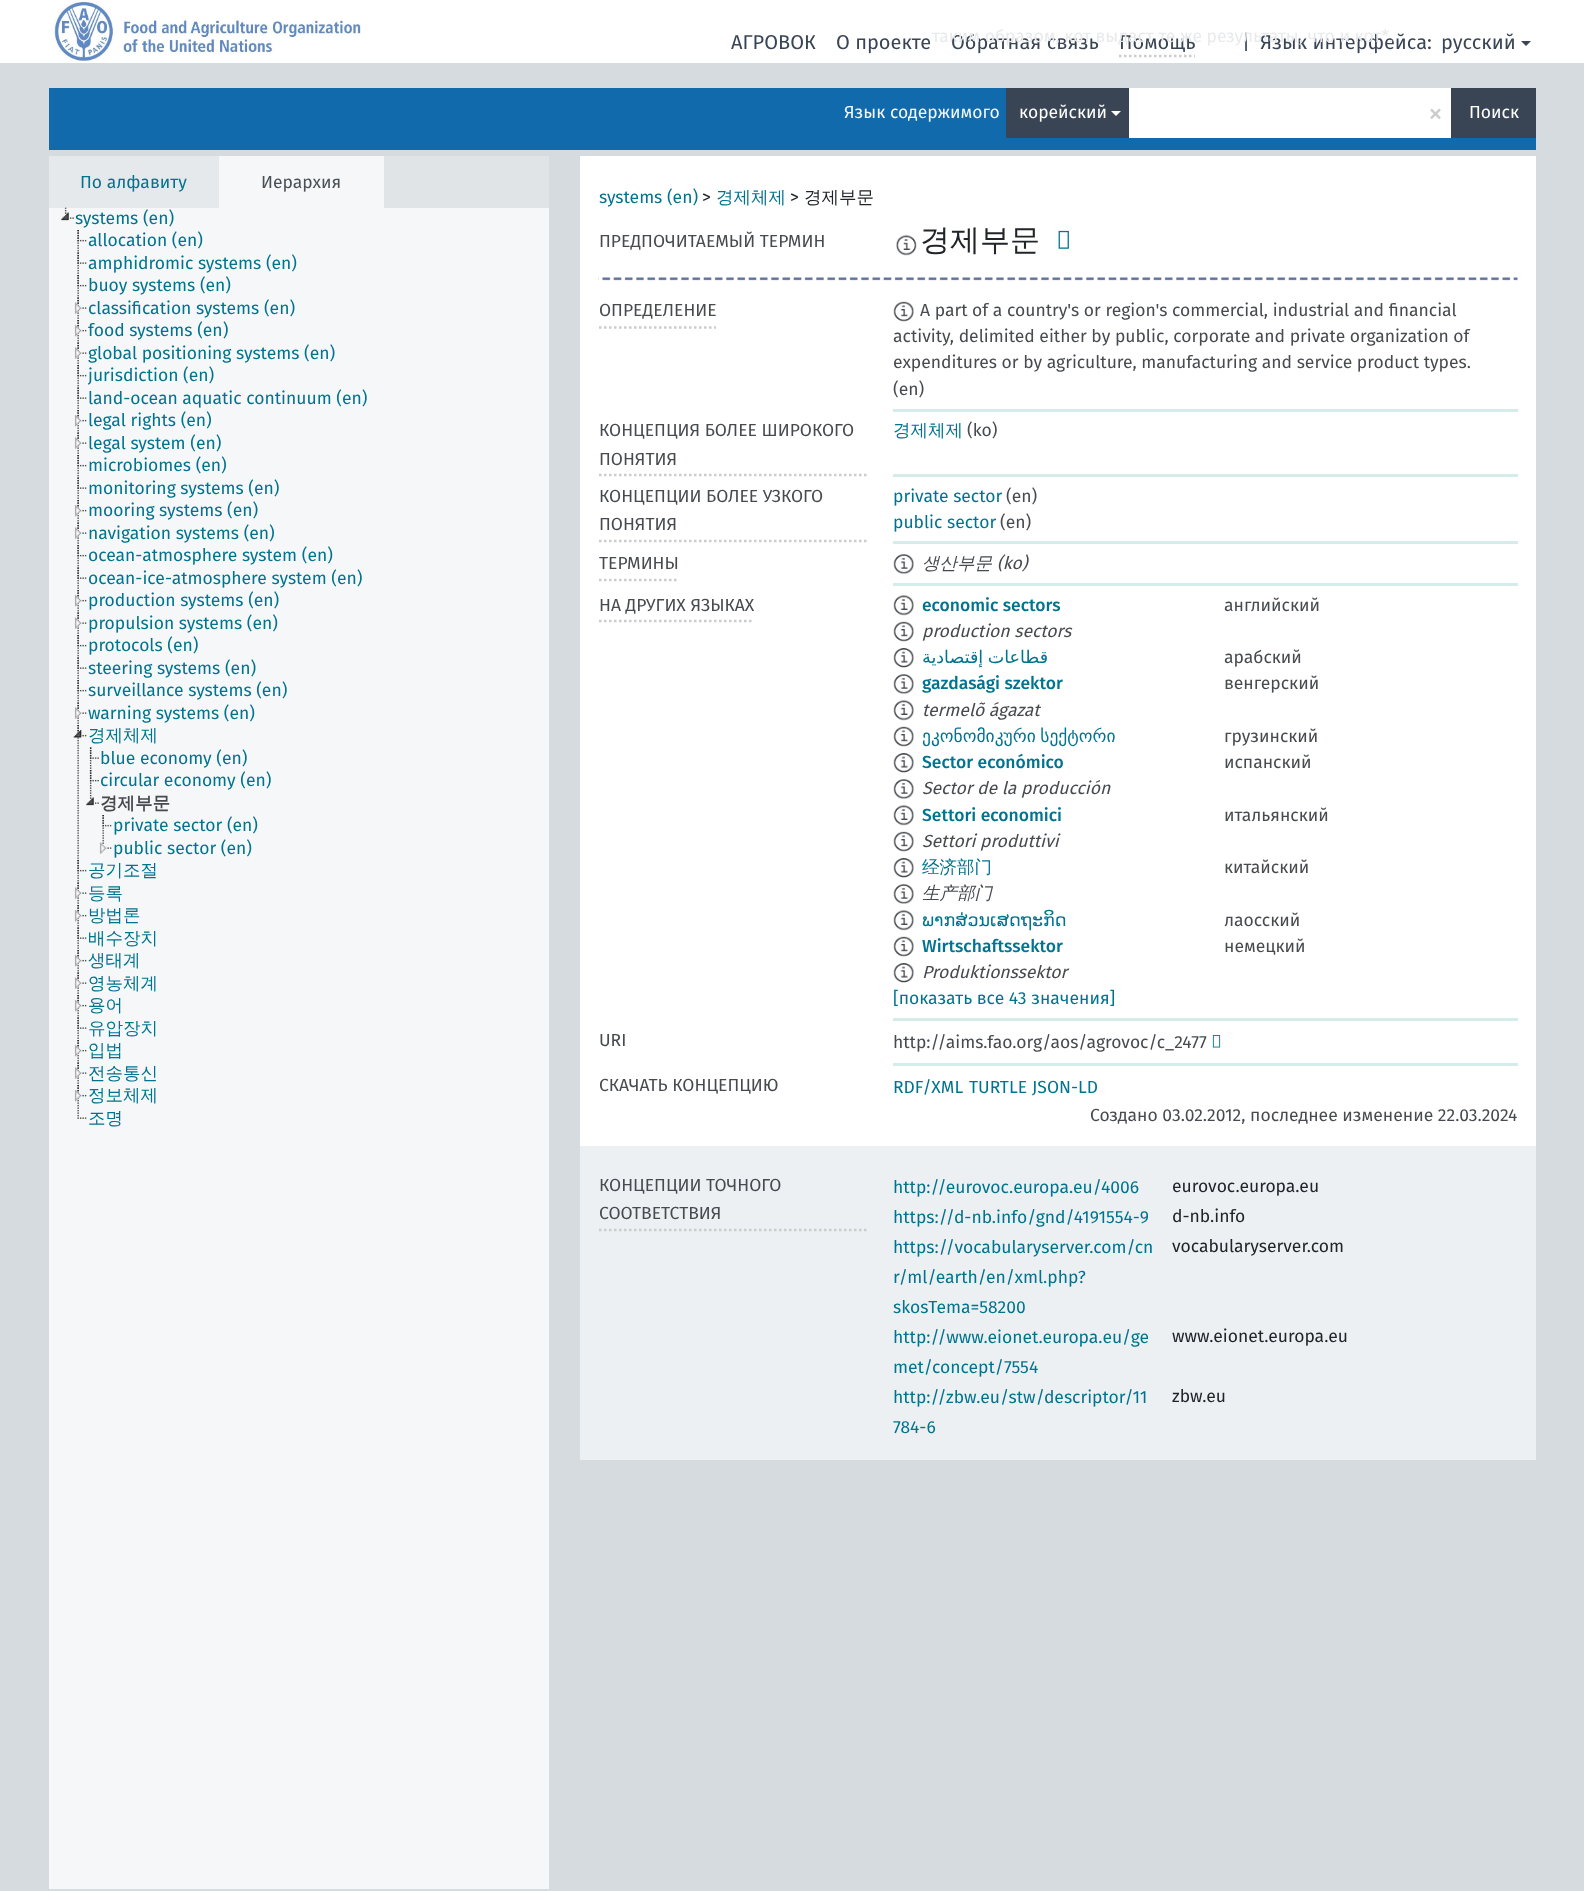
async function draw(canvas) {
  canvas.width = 1584;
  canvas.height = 1891;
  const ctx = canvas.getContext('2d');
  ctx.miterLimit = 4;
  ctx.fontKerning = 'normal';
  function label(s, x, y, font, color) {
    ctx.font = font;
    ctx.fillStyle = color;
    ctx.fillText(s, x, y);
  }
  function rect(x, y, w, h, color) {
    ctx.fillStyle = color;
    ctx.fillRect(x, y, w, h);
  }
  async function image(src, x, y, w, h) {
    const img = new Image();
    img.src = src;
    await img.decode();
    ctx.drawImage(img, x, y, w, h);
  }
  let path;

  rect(0, 0, 1584, 1891, '#d5dbde');
  rect(0, 0, 1584, 63, '#fff');
  await image('assets/img1.png', 54, 1, 307, 61);
  label('Помощь', 1119, 49, '20px Fira Sans', '#394554');
  label('Обратная связь', 951, 49, '20px Fira Sans', '#394554');
  label('|', 1242, 49, '20px Fira Sans', '#394554');
  label('Язык интерфейса:', 1260, 49, '20px Fira Sans', '#394554');
  label('таким образом, кот выдаст те же результаты, что и кот*.', 932, 42, '17.5px Fira Sans', '#e9eaec');
  path = new Path2D('M1119 56H1195');
  ctx.strokeStyle = '#ccc';
  ctx.lineWidth = 2.5;
  ctx.setLineDash([2.5, 2.5]);
  ctx.stroke(path);
  label('АГРОВОК', 731, 49, '20px Fira Sans', '#394554');
  label('О проекте', 836, 49, '20px Fira Sans', '#394554');
  label('русский', 1441, 49, '20px Fira Sans', '#394554');
  path = new Path2D('M1521 41H1531L1526 46Z');
  ctx.fill(path);
  rect(49, 88, 1487, 62, '#116aab');
  label('Язык содержимого', 844, 118, '17.5px Fira Sans', '#f3f8fb');
  rect(1006, 88, 123, 50, '#394554');
  label('корейский', 1019, 118, '17.5px Fira Sans', '#fff');
  path = new Path2D('M1111 111H1121L1116 116Z');
  ctx.fill(path);
  rect(1129, 88, 322, 50, '#fff');
  label('×', 1428, 123, '30px Fira Sans', '#ccc');
  rect(1451, 88, 85, 50, '#394554');
  label('Поиск', 1469, 118, '17.5px Fira Sans', '#fff');
  rect(384, 156, 165, 52, '#e0e4e7');
  rect(49, 156, 170, 52, '#e6e9eb');
  label('По алфавиту', 80, 188, '17.5px Fira Sans', '#00748f');
  rect(219, 156, 165, 52, '#f6f7f8');
  label('Иерархия', 261, 188, '17.5px Fira Sans', '#495057');
  rect(49, 208, 500, 1681, '#f6f7f8');
  await image('assets/img2.png', 61, 207, 13, 14);
  label('systems (en)', 75, 224, '17.5px Fira Sans', '#00748f');
  await image('assets/img3.png', 77, 230, 2, 22);
  await image('assets/img4.png', 77, 230, 10, 12);
  label('allocation (en)', 88, 246, '17.5px Fira Sans', '#00748f');
  await image('assets/img5.png', 77, 252, 2, 22);
  await image('assets/img6.png', 77, 252, 10, 12);
  label('amphidromic systems (en)', 88, 269, '17.5px Fira Sans', '#00748f');
  await image('assets/img3.png', 77, 275, 2, 22);
  await image('assets/img4.png', 77, 275, 10, 12);
  label('buoy systems (en)', 88, 291, '17.5px Fira Sans', '#00748f');
  await image('assets/img5.png', 77, 297, 2, 22);
  await image('assets/img7.png', 74, 297, 13, 17);
  label('classification systems (en)', 88, 314, '17.5px Fira Sans', '#00748f');
  await image('assets/img3.png', 77, 320, 2, 22);
  await image('assets/img8.png', 74, 320, 13, 17);
  label('food systems (en)', 88, 336, '17.5px Fira Sans', '#00748f');
  await image('assets/img5.png', 77, 342, 2, 22);
  await image('assets/img7.png', 74, 342, 13, 17);
  label('global positioning systems (en)', 88, 359, '17.5px Fira Sans', '#00748f');
  await image('assets/img3.png', 77, 365, 2, 22);
  await image('assets/img4.png', 77, 365, 10, 12);
  label('jurisdiction (en)', 88, 381, '17.5px Fira Sans', '#00748f');
  await image('assets/img5.png', 77, 387, 2, 22);
  await image('assets/img6.png', 77, 387, 10, 12);
  label('land-ocean aquatic continuum (en)', 88, 404, '17.5px Fira Sans', '#00748f');
  await image('assets/img3.png', 77, 410, 2, 22);
  await image('assets/img8.png', 74, 410, 13, 17);
  label('legal rights (en)', 88, 426, '17.5px Fira Sans', '#00748f');
  await image('assets/img5.png', 77, 432, 2, 22);
  await image('assets/img7.png', 74, 432, 13, 17);
  label('legal system (en)', 88, 449, '17.5px Fira Sans', '#00748f');
  await image('assets/img3.png', 77, 455, 2, 22);
  await image('assets/img4.png', 77, 455, 10, 12);
  label('microbiomes (en)', 88, 471, '17.5px Fira Sans', '#00748f');
  await image('assets/img5.png', 77, 477, 2, 22);
  await image('assets/img6.png', 77, 477, 10, 12);
  label('monitoring systems (en)', 88, 494, '17.5px Fira Sans', '#00748f');
  await image('assets/img3.png', 77, 500, 2, 22);
  await image('assets/img8.png', 74, 500, 13, 17);
  label('mooring systems (en)', 88, 516, '17.5px Fira Sans', '#00748f');
  await image('assets/img5.png', 77, 522, 2, 22);
  await image('assets/img7.png', 74, 522, 13, 17);
  label('navigation systems (en)', 88, 539, '17.5px Fira Sans', '#00748f');
  await image('assets/img3.png', 77, 545, 2, 22);
  await image('assets/img4.png', 77, 545, 10, 12);
  label('ocean-atmosphere system (en)', 88, 561, '17.5px Fira Sans', '#00748f');
  await image('assets/img5.png', 77, 567, 2, 22);
  await image('assets/img6.png', 77, 567, 10, 12);
  label('ocean-ice-atmosphere system (en)', 88, 584, '17.5px Fira Sans', '#00748f');
  await image('assets/img3.png', 77, 590, 2, 22);
  await image('assets/img8.png', 74, 590, 13, 17);
  label('production systems (en)', 88, 606, '17.5px Fira Sans', '#00748f');
  await image('assets/img5.png', 77, 612, 2, 22);
  await image('assets/img7.png', 74, 612, 13, 17);
  label('propulsion systems (en)', 88, 629, '17.5px Fira Sans', '#00748f');
  await image('assets/img3.png', 77, 635, 2, 22);
  await image('assets/img4.png', 77, 635, 10, 12);
  label('protocols (en)', 88, 651, '17.5px Fira Sans', '#00748f');
  await image('assets/img5.png', 77, 657, 2, 22);
  await image('assets/img6.png', 77, 657, 10, 12);
  label('steering systems (en)', 88, 674, '17.5px Fira Sans', '#00748f');
  await image('assets/img3.png', 77, 680, 2, 22);
  await image('assets/img4.png', 77, 680, 10, 12);
  label('surveillance systems (en)', 88, 696, '17.5px Fira Sans', '#00748f');
  await image('assets/img5.png', 77, 702, 2, 22);
  await image('assets/img7.png', 74, 702, 13, 17);
  label('warning systems (en)', 88, 719, '17.5px Fira Sans', '#00748f');
  await image('assets/img9.png', 77, 725, 2, 135);
  await image('assets/img10.png', 73, 725, 14, 13);
  label('경제체제', 88, 741, '500 17.5px WenQuanYi Zen Hei', '#00748f');
  await image('assets/img11.png', 89, 747, 3, 22);
  await image('assets/img12.png', 89, 747, 10, 12);
  label('blue economy (en)', 100, 764, '17.5px Fira Sans', '#00748f');
  await image('assets/img13.png', 89, 770, 3, 22);
  await image('assets/img14.png', 89, 770, 10, 12);
  label('circular economy (en)', 100, 786, '17.5px Fira Sans', '#00748f');
  await image('assets/img15.png', 86, 792, 13, 14);
  label('경제부문', 100, 809, 'bold 17.5px WenQuanYi Zen Hei', '#474b4f');
  await image('assets/img16.png', 102, 815, 2, 22);
  await image('assets/img17.png', 102, 815, 10, 12);
  label('private sector (en)', 113, 831, '17.5px Fira Sans', '#00748f');
  await image('assets/img18.png', 99, 837, 13, 17);
  label('public sector (en)', 113, 854, '17.5px Fira Sans', '#00748f');
  await image('assets/img3.png', 77, 860, 2, 22);
  await image('assets/img4.png', 77, 860, 10, 12);
  label('공기조절', 88, 876, '500 17.5px WenQuanYi Zen Hei', '#00748f');
  await image('assets/img5.png', 77, 882, 2, 22);
  await image('assets/img7.png', 74, 882, 13, 17);
  label('등록', 88, 899, '500 17.5px WenQuanYi Zen Hei', '#00748f');
  await image('assets/img3.png', 77, 905, 2, 22);
  await image('assets/img8.png', 74, 905, 13, 17);
  label('방법론', 88, 921, '500 17.5px WenQuanYi Zen Hei', '#00748f');
  await image('assets/img5.png', 77, 927, 2, 22);
  await image('assets/img6.png', 77, 927, 10, 12);
  label('배수장치', 88, 944, '500 17.5px WenQuanYi Zen Hei', '#00748f');
  await image('assets/img3.png', 77, 950, 2, 22);
  await image('assets/img8.png', 74, 950, 13, 17);
  label('생태계', 88, 966, '500 17.5px WenQuanYi Zen Hei', '#00748f');
  await image('assets/img5.png', 77, 972, 2, 22);
  await image('assets/img7.png', 74, 972, 13, 17);
  label('영농체계', 88, 989, '500 17.5px WenQuanYi Zen Hei', '#00748f');
  await image('assets/img3.png', 77, 995, 2, 22);
  await image('assets/img8.png', 74, 995, 13, 17);
  label('용어', 88, 1011, '500 17.5px WenQuanYi Zen Hei', '#00748f');
  await image('assets/img5.png', 77, 1017, 2, 22);
  await image('assets/img6.png', 77, 1017, 10, 12);
  label('유압장치', 88, 1034, '500 17.5px WenQuanYi Zen Hei', '#00748f');
  await image('assets/img3.png', 77, 1040, 2, 22);
  await image('assets/img8.png', 74, 1040, 13, 17);
  label('입법', 88, 1056, '500 17.5px WenQuanYi Zen Hei', '#00748f');
  await image('assets/img5.png', 77, 1062, 2, 22);
  await image('assets/img7.png', 74, 1062, 13, 17);
  label('전송통신', 88, 1079, '500 17.5px WenQuanYi Zen Hei', '#00748f');
  await image('assets/img3.png', 77, 1085, 2, 22);
  await image('assets/img8.png', 74, 1085, 13, 17);
  label('정보체제', 88, 1101, '500 17.5px WenQuanYi Zen Hei', '#00748f');
  await image('assets/img19.png', 77, 1107, 10, 12);
  label('조명', 88, 1124, '500 17.5px WenQuanYi Zen Hei', '#00748f');
  rect(580, 156, 956, 990, '#fff');
  label('systems (en)', 599, 203, '17.5px Fira Sans', '#00748f');
  label('>', 702, 203, '17.5px Fira Sans', '#212529');
  label('경제체제', 716, 203, '500 17.5px WenQuanYi Zen Hei', '#00748f');
  label('>', 790, 203, '17.5px Fira Sans', '#212529');
  label('경제부문', 804, 203, '500 17.5px WenQuanYi Zen Hei', '#212529');
  label('ПРЕДПОЧИТАЕМЫЙ ТЕРМИН', 599, 247, '17.5px Fira Sans', '#474b4f');
  await image('assets/img20.png', 896, 235, 21, 21);
  label('경제부문', 920, 250, '500 30px WenQuanYi Zen Hei', '#212529');
  await image('assets/img21.png', 1058, 230, 11, 19);
  await image('assets/img22.png', 598, 277, 920, 4);
  path = new Path2D('M599 327.5H716');
  ctx.stroke(path);
  label('ОПРЕДЕЛЕНИЕ', 599, 316, '17.5px Fira Sans', '#474b4f');
  rect(893, 409, 625, 3, '#d4edeb');
  await image('assets/img23.png', 893, 301, 21, 21);
  label('A part of a country\'s or region\'s commercial, industrial and financial', 920, 316, '17.5px Fira Sans', '#474b4f');
  label('activity, delimited either by public, corporate and private organization of', 893, 342, '17.5px Fira Sans', '#474b4f');
  label('expenditures or by agriculture, manufacturing and service product types.', 893, 368, '17.5px Fira Sans', '#474b4f');
  label('(en)', 893, 395, '17.5px Fira Sans', '#474b4f');
  path = new Path2D('M599 475H867.5');
  ctx.stroke(path);
  label('КОНЦЕПЦИЯ БОЛЕЕ ШИРОКОГО', 599, 436, '17.5px Fira Sans', '#474b4f');
  label('ПОНЯТИЯ', 599, 465, '17.5px Fira Sans', '#474b4f');
  rect(893, 474, 625, 3, '#d4edeb');
  label('경제체제', 893, 436, '500 17.5px WenQuanYi Zen Hei', '#00748f');
  label('(ko)', 967, 436, '17.5px Fira Sans', '#474b4f');
  path = new Path2D('M599 541H867.5');
  ctx.stroke(path);
  label('КОНЦЕПЦИИ БОЛЕЕ УЗКОГО', 599, 502, '17.5px Fira Sans', '#474b4f');
  label('ПОНЯТИЯ', 599, 530, '17.5px Fira Sans', '#474b4f');
  rect(893, 541, 625, 3, '#d4edeb');
  label('private sector', 893, 502, '17.5px Fira Sans', '#00748f');
  label('(en)', 1006, 502, '17.5px Fira Sans', '#474b4f');
  label('public sector', 893, 528, '17.5px Fira Sans', '#00748f');
  label('(en)', 1000, 528, '17.5px Fira Sans', '#474b4f');
  path = new Path2D('M599 580H679');
  ctx.stroke(path);
  label('ТЕРМИНЫ', 599, 569, '17.5px Fira Sans', '#474b4f');
  rect(893, 583, 625, 3, '#d4edeb');
  await image('assets/img24.png', 893, 554, 21, 20);
  label('생산부문', 922, 569, 'italic 500 17.5px WenQuanYi Zen Hei', '#474b4f');
  label('(ko)', 997, 569, 'italic 17.5px Fira Sans', '#474b4f');
  path = new Path2D('M599 621H754');
  ctx.stroke(path);
  label('НА ДРУГИХ ЯЗЫКАХ', 599, 611, '17.5px Fira Sans', '#474b4f');
  rect(893, 1018, 625, 3, '#d4edeb');
  await image('assets/img25.png', 893, 595, 21, 21);
  label('economic sectors', 922, 611, '500 17.5px Fira Sans', '#00748f');
  label('английский', 1224, 611, '17.5px Fira Sans', '#474b4f');
  await image('assets/img23.png', 893, 621, 21, 21);
  label('production sectors', 922, 637, 'italic 17.5px Fira Sans', '#474b4f');
  await image('assets/img26.png', 893, 648, 21, 20);
  ctx.wordSpacing = '-1px';
  ctx.direction = 'rtl';
  label('قطاعات إقتصادية', 1048, 663, '17.5px DejaVu Sans', '#00748f');
  ctx.wordSpacing = '0px';
  ctx.direction = 'ltr';
  label('арабский', 1224, 663, '17.5px Fira Sans', '#474b4f');
  await image('assets/img24.png', 893, 674, 21, 20);
  label('gazdasági szektor', 922, 689, '500 17.5px Fira Sans', '#00748f');
  label('венгерский', 1224, 689, '17.5px Fira Sans', '#474b4f');
  await image('assets/img25.png', 893, 700, 21, 21);
  label('termelõ ágazat', 922, 716, 'italic 17.5px Fira Sans', '#474b4f');
  await image('assets/img27.png', 893, 726, 21, 21);
  ctx.wordSpacing = '-1px';
  label('ეკონომიკური სექტორი', 922, 742, '17.5px DejaVu Sans', '#00748f');
  ctx.wordSpacing = '0px';
  label('грузинский', 1224, 742, '17.5px Fira Sans', '#474b4f');
  await image('assets/img26.png', 893, 753, 21, 20);
  label('Sector económico', 922, 768, '500 17.5px Fira Sans', '#00748f');
  label('испанский', 1224, 768, '17.5px Fira Sans', '#474b4f');
  await image('assets/img24.png', 893, 779, 21, 20);
  label('Sector de la producción', 922, 794, 'italic 17.5px Fira Sans', '#474b4f');
  await image('assets/img25.png', 893, 805, 21, 21);
  label('Settori economici', 922, 821, '500 17.5px Fira Sans', '#00748f');
  label('итальянский', 1224, 821, '17.5px Fira Sans', '#474b4f');
  await image('assets/img23.png', 893, 831, 21, 21);
  label('Settori produttivi', 922, 847, 'italic 17.5px Fira Sans', '#474b4f');
  await image('assets/img26.png', 893, 858, 21, 20);
  label('经济部门', 922, 873, '500 17.5px WenQuanYi Zen Hei', '#00748f');
  label('китайский', 1224, 873, '17.5px Fira Sans', '#474b4f');
  await image('assets/img24.png', 893, 884, 21, 20);
  label('生产部门', 922, 899, 'italic 500 17.5px WenQuanYi Zen Hei', '#474b4f');
  await image('assets/img25.png', 893, 910, 21, 21);
  label('ພາກສ່ວນເສດຖະກິດ', 922, 926, '17.5px DejaVu Sans', '#00748f');
  label('лаосский', 1224, 926, '17.5px Fira Sans', '#474b4f');
  await image('assets/img23.png', 893, 936, 21, 21);
  label('Wirtschaftssektor', 922, 952, '500 17.5px Fira Sans', '#00748f');
  label('немецкий', 1224, 952, '17.5px Fira Sans', '#474b4f');
  await image('assets/img26.png', 893, 963, 21, 20);
  label('Produktionssektor', 922, 978, 'italic 17.5px Fira Sans', '#474b4f');
  label('[показать все 43 значения]', 893, 1004, '17.5px Fira Sans', '#00748f');
  label('URI', 599, 1046, '17.5px Fira Sans', '#474b4f');
  rect(893, 1063, 625, 3, '#d4edeb');
  label('http://aims.fao.org/aos/agrovoc/c_2477', 893, 1048, '17.5px Fira Sans', '#474b4f');
  await image('assets/img28.png', 1212, 1035, 9, 13);
  label('СКАЧАТЬ КОНЦЕПЦИЮ', 599, 1091, '17.5px Fira Sans', '#474b4f');
  label('RDF/XML', 893, 1093, '17.5px Fira Sans', '#00748f');
  label('TURTLE', 969, 1093, '17.5px Fira Sans', '#00748f');
  label('JSON-LD', 1032, 1093, '17.5px Fira Sans', '#00748f');
  label('Создано 03.02.2012, последнее изменение 22.03.2024', 1090, 1121, '17.5px Fira Sans', '#474b4f');
  rect(580, 1146, 956, 314, '#edf0f2');
  path = new Path2D('M599 1230H867.5');
  ctx.stroke(path);
  label('КОНЦЕПЦИИ ТОЧНОГО', 599, 1191, '17.5px Fira Sans', '#474b4f');
  label('СООТВЕТСТВИЯ', 599, 1219, '17.5px Fira Sans', '#474b4f');
  label('http://eurovoc.europa.eu/4006', 893, 1193, '17.5px Fira Sans', '#00748f');
  label('eurovoc.europa.eu', 1172, 1192, '17.5px Fira Sans', '#212529');
  label('https://d-nb.info/gnd/4191554-9', 893, 1223, '17.5px Fira Sans', '#00748f');
  label('d-nb.info', 1172, 1222, '17.5px Fira Sans', '#212529');
  label('https://vocabularyserver.com/cn', 893, 1253, '17.5px Fira Sans', '#00748f');
  label('r/ml/earth/en/xml.php?', 893, 1283, '17.5px Fira Sans', '#00748f');
  label('skosTema=58200', 893, 1313, '17.5px Fira Sans', '#00748f');
  label('vocabularyserver.com', 1172, 1252, '17.5px Fira Sans', '#212529');
  label('http://www.eionet.europa.eu/ge', 893, 1343, '17.5px Fira Sans', '#00748f');
  label('met/concept/7554', 893, 1373, '17.5px Fira Sans', '#00748f');
  label('www.eionet.europa.eu', 1172, 1342, '17.5px Fira Sans', '#212529');
  label('http://zbw.eu/stw/descriptor/11', 893, 1403, '17.5px Fira Sans', '#00748f');
  label('784-6', 893, 1433, '17.5px Fira Sans', '#00748f');
  label('zbw.eu', 1172, 1402, '17.5px Fira Sans', '#212529');
}

draw(document.querySelector('canvas'));
